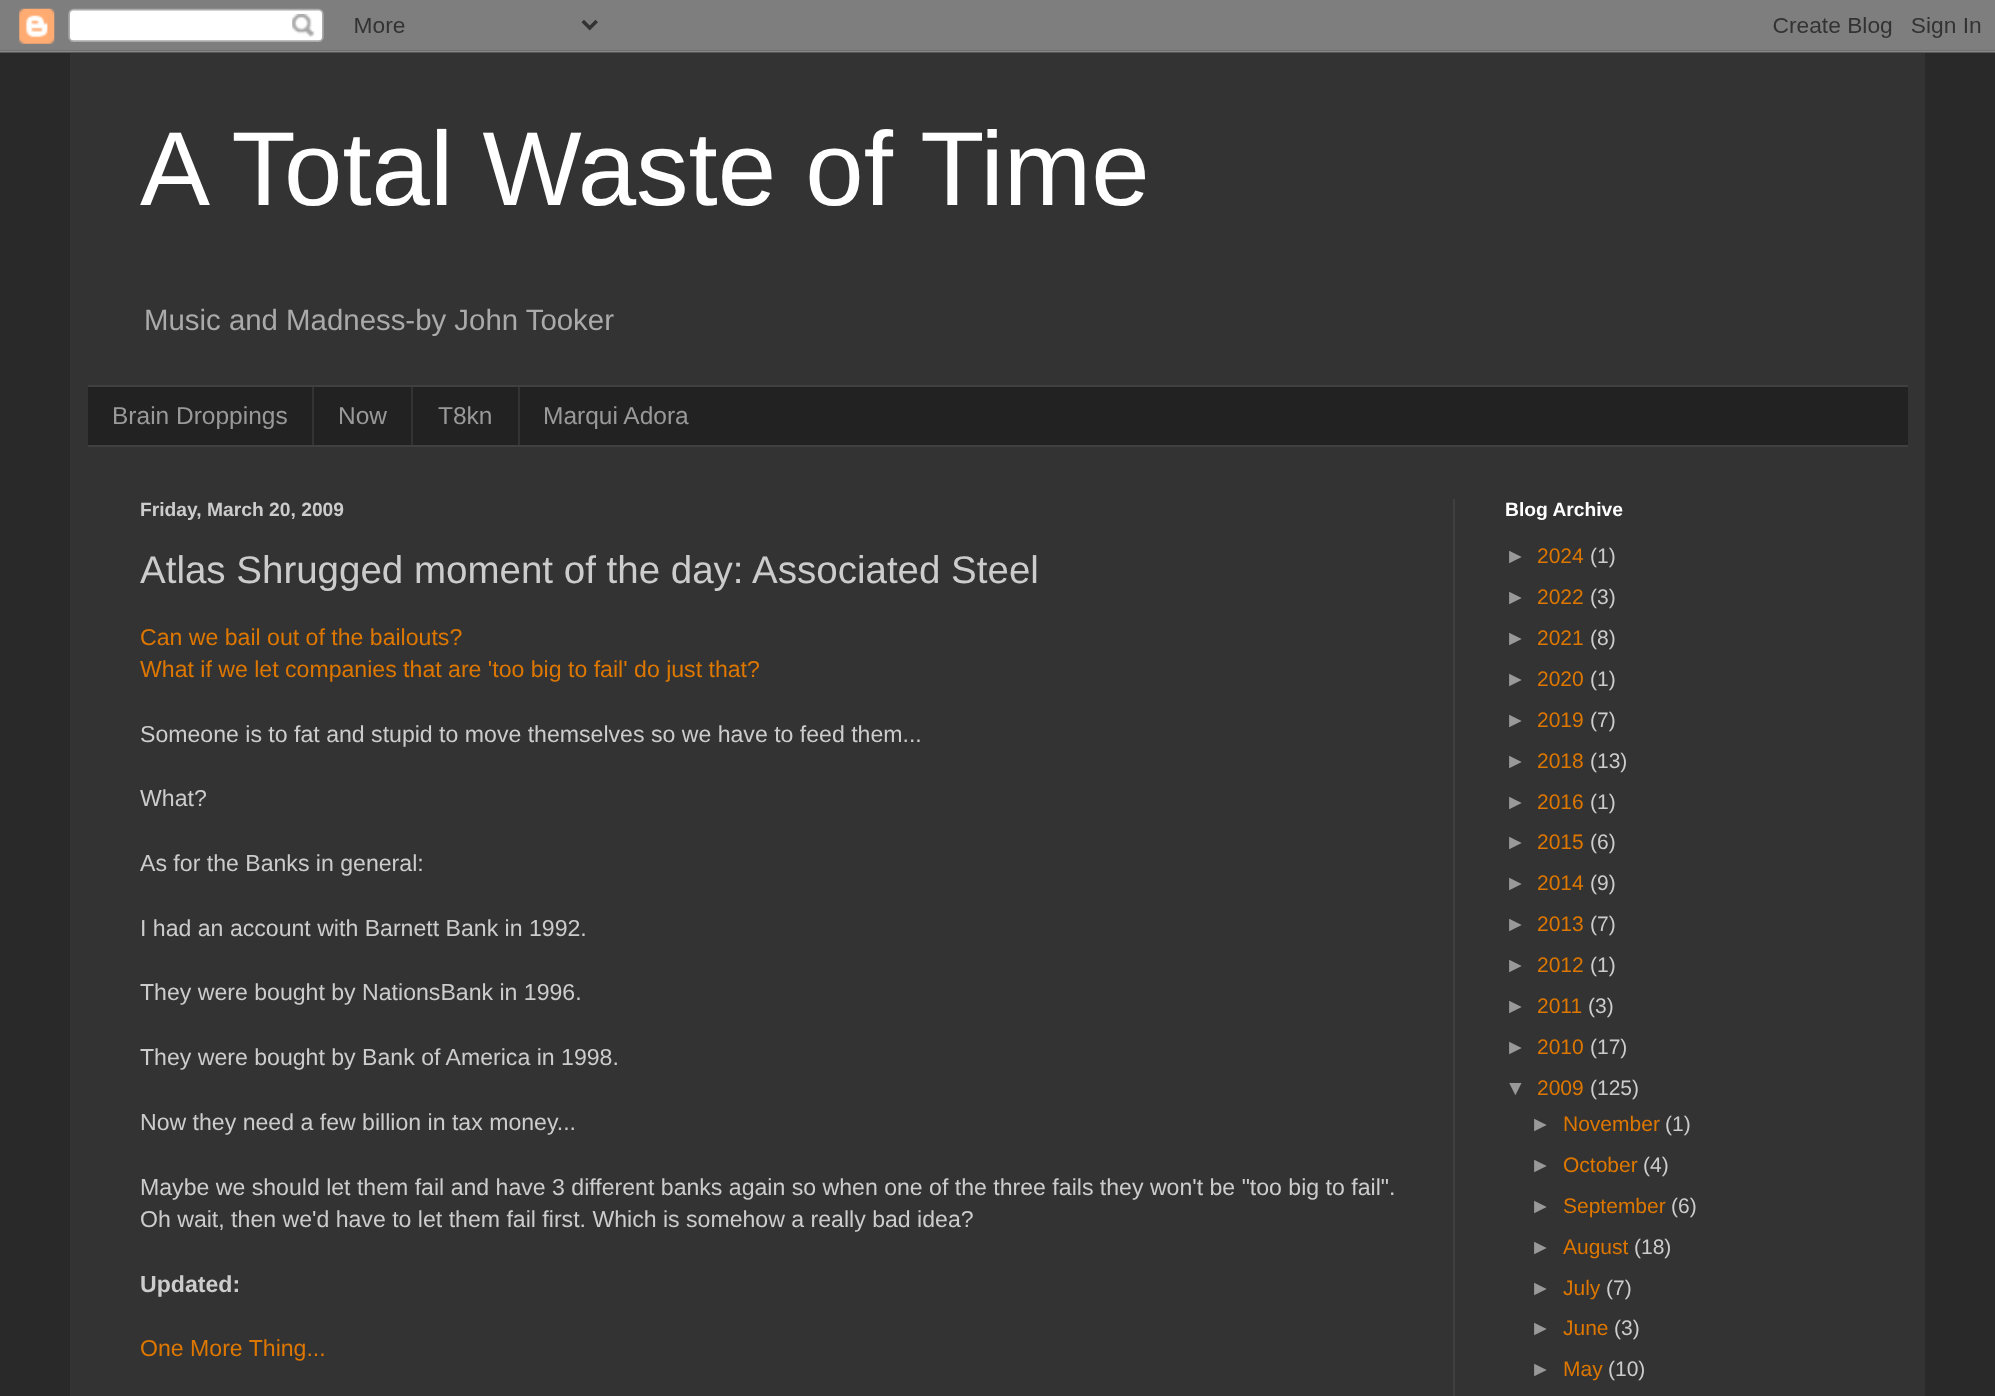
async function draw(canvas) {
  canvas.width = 1995;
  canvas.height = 1396;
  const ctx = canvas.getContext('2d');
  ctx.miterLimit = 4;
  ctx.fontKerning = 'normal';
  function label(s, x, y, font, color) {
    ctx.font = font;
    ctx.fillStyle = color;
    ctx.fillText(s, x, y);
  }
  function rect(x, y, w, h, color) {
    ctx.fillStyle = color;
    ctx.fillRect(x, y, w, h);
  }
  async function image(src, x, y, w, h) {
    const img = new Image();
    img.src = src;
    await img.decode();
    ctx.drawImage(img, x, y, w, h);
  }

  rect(0, 0, 1995, 1396, '#292929');
  await image('assets/img1.png', 0, 0, 1995, 53);
  rect(70, 53, 1855, 1343, '#333');
  label('A Total Waste of Time', 140, 205, '105px Liberation Sans', '#fff');
  label('Music and Madness-by John Tooker', 144, 330, '29.4px Liberation Sans', '#aaa');
  rect(88, 387, 1820, 58, '#222');
  rect(88, 385, 1820, 2, '#404040');
  rect(88, 445, 1820, 2, '#404040');
  label('Brain Droppings', 112, 424, '24.5px Liberation Sans', '#999');
  rect(312, 387, 2, 58, '#333');
  label('Now', 338, 424, '24.5px Liberation Sans', '#999');
  rect(411, 387, 2, 58, '#333');
  label('T8kn', 438, 424, '24.5px Liberation Sans', '#999');
  rect(518, 387, 2, 58, '#333');
  label('Marqui Adora', 543, 424, '24.5px Liberation Sans', '#999');
  rect(1453, 499, 2, 897, '#404040');
  label('Friday, March 20, 2009', 140, 516, 'bold 19.25px Liberation Sans', '#ccc');
  label('Atlas Shrugged moment of the day: Associated Steel', 140, 583, '38.5px Liberation Sans', '#ccc');
  label('Can we bail out of the bailouts?', 140, 645, '23.1px Liberation Sans', '#d70');
  label('What if we let companies that are \'too big to fail\' do just that?', 140, 677, '23.1px Liberation Sans', '#d70');
  label('Someone is to fat and stupid to move themselves so we have to feed them...', 140, 742, '23.1px Liberation Sans', '#ccc');
  label('What?', 140, 806, '23.1px Liberation Sans', '#ccc');
  label('As for the Banks in general:', 140, 871, '23.1px Liberation Sans', '#ccc');
  label('I had an account with Barnett Bank in 1992.', 140, 936, '23.1px Liberation Sans', '#ccc');
  label('They were bought by NationsBank in 1996.', 140, 1000, '23.1px Liberation Sans', '#ccc');
  label('They were bought by Bank of America in 1998.', 140, 1065, '23.1px Liberation Sans', '#ccc');
  label('Now they need a few billion in tax money...', 140, 1130, '23.1px Liberation Sans', '#ccc');
  label('Maybe we should let them fail and have 3 different banks again so when one of the three fails they won\'t be "too big to fail".', 140, 1195, '23.1px Liberation Sans', '#ccc');
  label('Oh wait, then we\'d have to let them fail first. Which is somehow a really bad idea?', 140, 1227, '23.1px Liberation Sans', '#ccc');
  label('Updated:', 140, 1292, 'bold 23.1px Liberation Sans', '#ccc');
  label('One More Thing...', 140, 1356, '23.1px Liberation Sans', '#d70');
  label('Blog Archive', 1505, 516, 'bold 19.25px Liberation Sans', '#fff');
  label('►', 1505, 563, '21px Liberation Sans', '#999');
  label('2024', 1537, 563, '21px Liberation Sans', '#d70');
  label('(1)', 1590, 563, '21px Liberation Sans', '#ccc');
  label('►', 1505, 604, '21px Liberation Sans', '#999');
  label('2022', 1537, 604, '21px Liberation Sans', '#d70');
  label('(3)', 1590, 604, '21px Liberation Sans', '#ccc');
  label('►', 1505, 645, '21px Liberation Sans', '#999');
  label('2021', 1537, 645, '21px Liberation Sans', '#d70');
  label('(8)', 1590, 645, '21px Liberation Sans', '#ccc');
  label('►', 1505, 686, '21px Liberation Sans', '#999');
  label('2020', 1537, 686, '21px Liberation Sans', '#d70');
  label('(1)', 1590, 686, '21px Liberation Sans', '#ccc');
  label('►', 1505, 727, '21px Liberation Sans', '#999');
  label('2019', 1537, 727, '21px Liberation Sans', '#d70');
  label('(7)', 1590, 727, '21px Liberation Sans', '#ccc');
  label('►', 1505, 768, '21px Liberation Sans', '#999');
  label('2018', 1537, 768, '21px Liberation Sans', '#d70');
  label('(13)', 1590, 768, '21px Liberation Sans', '#ccc');
  label('►', 1505, 809, '21px Liberation Sans', '#999');
  label('2016', 1537, 809, '21px Liberation Sans', '#d70');
  label('(1)', 1590, 809, '21px Liberation Sans', '#ccc');
  label('►', 1505, 849, '21px Liberation Sans', '#999');
  label('2015', 1537, 849, '21px Liberation Sans', '#d70');
  label('(6)', 1590, 849, '21px Liberation Sans', '#ccc');
  label('►', 1505, 890, '21px Liberation Sans', '#999');
  label('2014', 1537, 890, '21px Liberation Sans', '#d70');
  label('(9)', 1590, 890, '21px Liberation Sans', '#ccc');
  label('►', 1505, 931, '21px Liberation Sans', '#999');
  label('2013', 1537, 931, '21px Liberation Sans', '#d70');
  label('(7)', 1590, 931, '21px Liberation Sans', '#ccc');
  label('►', 1505, 972, '21px Liberation Sans', '#999');
  label('2012', 1537, 972, '21px Liberation Sans', '#d70');
  label('(1)', 1590, 972, '21px Liberation Sans', '#ccc');
  label('►', 1505, 1013, '21px Liberation Sans', '#999');
  label('2011', 1537, 1013, '21px Liberation Sans', '#d70');
  label('(3)', 1588, 1013, '21px Liberation Sans', '#ccc');
  label('►', 1505, 1054, '21px Liberation Sans', '#999');
  label('2010', 1537, 1054, '21px Liberation Sans', '#d70');
  label('(17)', 1590, 1054, '21px Liberation Sans', '#ccc');
  label('▼', 1505, 1095, '21px Liberation Sans', '#999');
  label('2009', 1537, 1095, '21px Liberation Sans', '#d70');
  label('(125)', 1590, 1095, '21px Liberation Sans', '#ccc');
  label('►', 1530, 1131, '21px Liberation Sans', '#999');
  label('November', 1563, 1131, '21px Liberation Sans', '#d70');
  label('(1)', 1665, 1131, '21px Liberation Sans', '#ccc');
  label('►', 1530, 1172, '21px Liberation Sans', '#999');
  label('October', 1563, 1172, '21px Liberation Sans', '#d70');
  label('(4)', 1643, 1172, '21px Liberation Sans', '#ccc');
  label('►', 1530, 1213, '21px Liberation Sans', '#999');
  label('September', 1563, 1213, '21px Liberation Sans', '#d70');
  label('(6)', 1671, 1213, '21px Liberation Sans', '#ccc');
  label('►', 1530, 1254, '21px Liberation Sans', '#999');
  label('August', 1563, 1254, '21px Liberation Sans', '#d70');
  label('(18)', 1634, 1254, '21px Liberation Sans', '#ccc');
  label('►', 1530, 1295, '21px Liberation Sans', '#999');
  label('July', 1563, 1295, '21px Liberation Sans', '#d70');
  label('(7)', 1606, 1295, '21px Liberation Sans', '#ccc');
  label('►', 1530, 1335, '21px Liberation Sans', '#999');
  label('June', 1563, 1335, '21px Liberation Sans', '#d70');
  label('(3)', 1614, 1335, '21px Liberation Sans', '#ccc');
  label('►', 1530, 1376, '21px Liberation Sans', '#999');
  label('May', 1563, 1376, '21px Liberation Sans', '#d70');
  label('(10)', 1608, 1376, '21px Liberation Sans', '#ccc');
}

draw(document.querySelector('canvas'));
